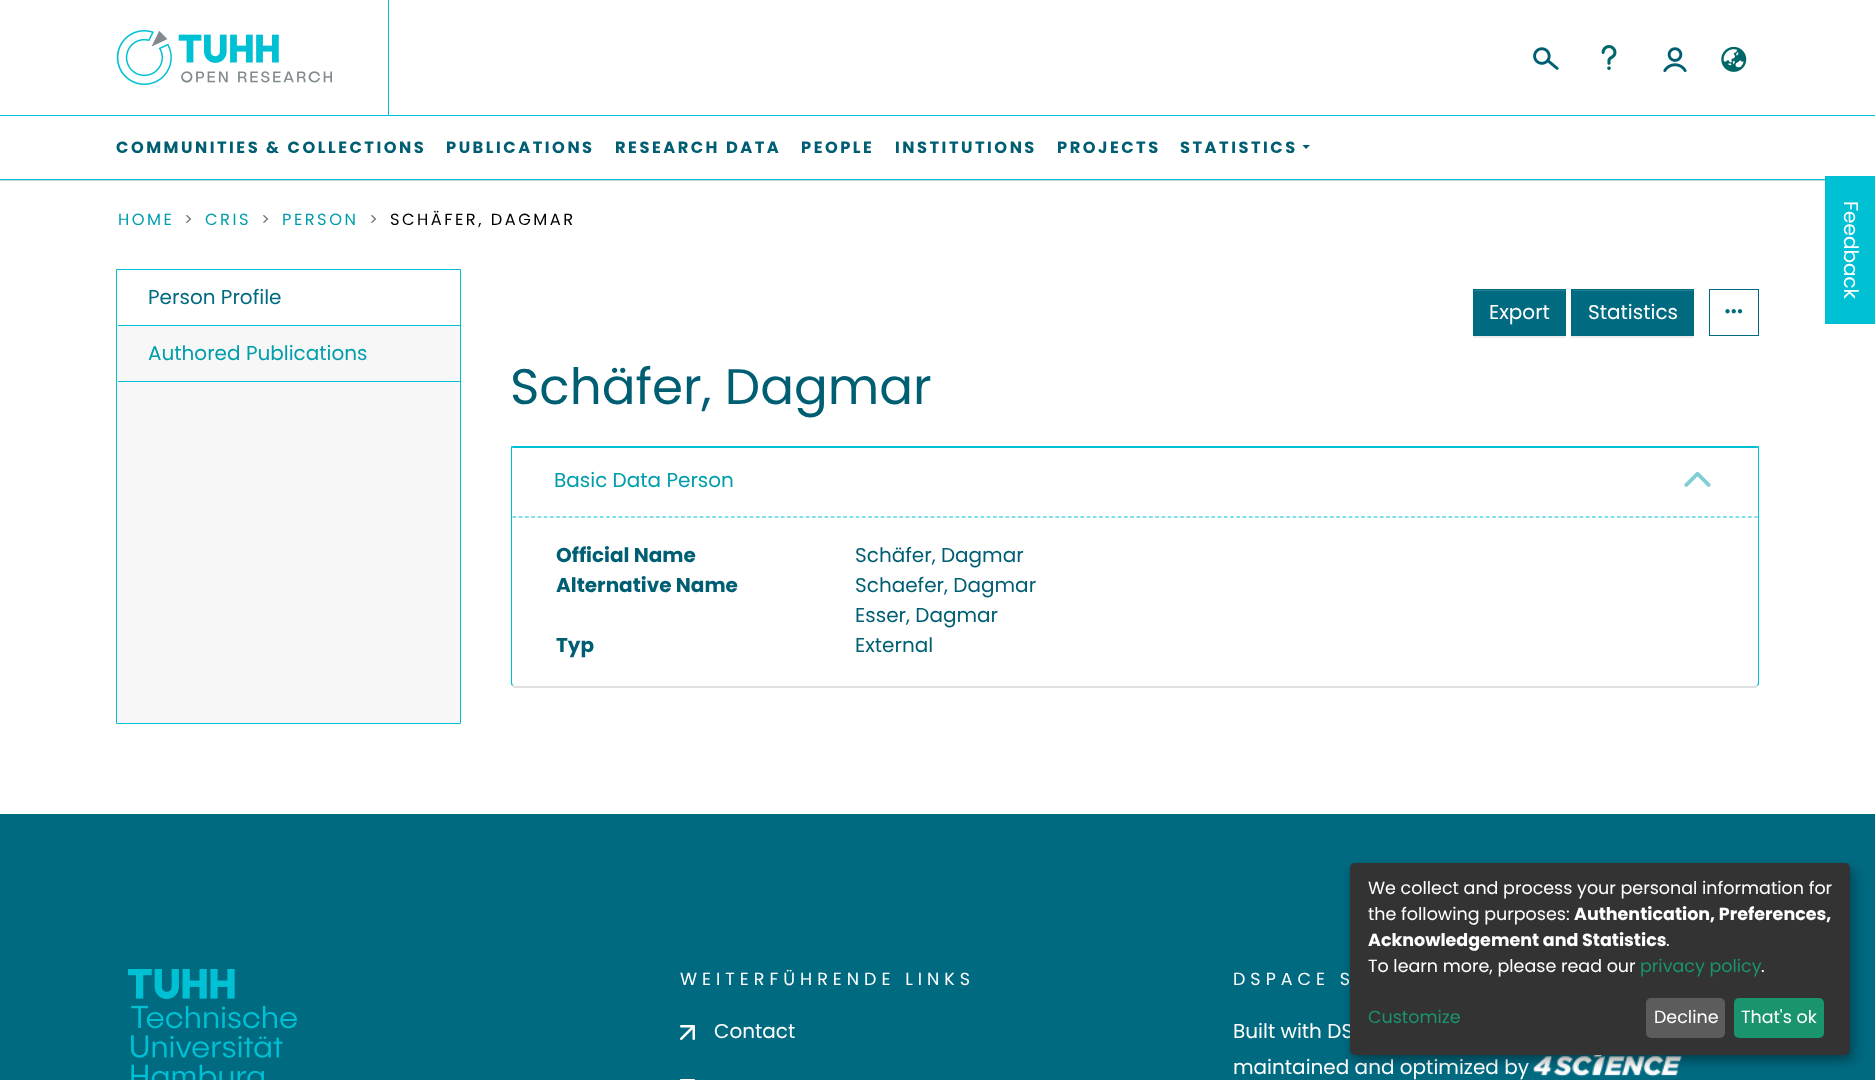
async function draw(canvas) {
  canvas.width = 1875;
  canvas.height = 1080;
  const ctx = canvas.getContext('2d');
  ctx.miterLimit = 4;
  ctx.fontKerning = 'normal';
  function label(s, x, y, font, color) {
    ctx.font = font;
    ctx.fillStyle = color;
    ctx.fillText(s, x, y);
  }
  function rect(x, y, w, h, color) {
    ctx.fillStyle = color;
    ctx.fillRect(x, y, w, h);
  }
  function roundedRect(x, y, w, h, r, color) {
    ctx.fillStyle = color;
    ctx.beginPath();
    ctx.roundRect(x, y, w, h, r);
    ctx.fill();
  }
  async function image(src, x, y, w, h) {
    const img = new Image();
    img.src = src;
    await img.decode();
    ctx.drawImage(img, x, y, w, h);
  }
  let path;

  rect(0, 0, 1875, 1080, '#fff');
  rect(0, 180, 1825, 1, '#ced4da');
  rect(0, 115, 1875, 1, '#00c1d4');
  rect(388, 0, 1, 115, '#00c1d4');
  await image('assets/img1.png', 116, 30, 216, 55);
  await image('assets/img2.png', 1533, 47, 26, 23);
  await image('assets/img3.png', 1601, 45, 16, 25);
  await image('assets/img4.png', 1663, 47, 24, 26);
  await image('assets/img5.png', 1721, 46, 26, 26);
  rect(0, 179, 1825, 1, '#00c1d4');
  ctx.letterSpacing = '2.5px';
  label('COMMUNITIES & COLLECTIONS', 116, 153, 'bold 16.25px Poppins', '#005e73');
  label('PUBLICATIONS', 446, 153, 'bold 16.25px Poppins', '#005e73');
  label('RESEARCH DATA', 615, 153, 'bold 16.25px Poppins', '#005e73');
  label('PEOPLE', 801, 153, 'bold 16.25px Poppins', '#005e73');
  label('INSTITUTIONS', 895, 153, 'bold 16.25px Poppins', '#005e73');
  label('PROJECTS', 1057, 153, 'bold 16.25px Poppins', '#005e73');
  label('STATISTICS', 1180, 153, 'bold 16.25px Poppins', '#005e73');
  path = new Path2D('M1302.5 145H1310L1306 149Z');
  ctx.fill(path);
  label('HOME', 118, 225, '16.25px Poppins', '#009eac');
  label('>', 184, 225, '16.25px Poppins', '#6c757d');
  label('CRIS', 205, 225, '16.25px Poppins', '#009eac');
  label('>', 261, 225, '16.25px Poppins', '#6c757d');
  label('PERSON', 282, 225, '16.25px Poppins', '#009eac');
  label('>', 369, 225, '16.25px Poppins', '#6c757d');
  label('SCHÄFER, DAGMAR', 390, 225, '16.25px Poppins', '#000');
  rect(0, 814, 1875, 266, '#006a81');
  rect(1825, 176, 50, 148, '#00c1d4');
  ctx.letterSpacing = '0px';
  ctx.font = '20px Poppins';
  ctx.fillStyle = '#fff';
  ctx.save();
  ctx.translate(1844, 201);
  ctx.rotate(90 * Math.PI / 180);
  ctx.fillText('Feedback', 0, 0);
  ctx.restore();
  await image('assets/img6.png', 128, 969, 169, 111);
  ctx.letterSpacing = '5px';
  label('WEITERFÜHRENDE LINKS', 680, 985, '17.5px Poppins', '#fff');
  await image('assets/img7.png', 680, 1025, 15, 15);
  ctx.letterSpacing = '0px';
  label('Contact', 714, 1038, '20px Poppins', '#fff');
  await image('assets/img8.png', 680, 1079, 15, 1);
  ctx.letterSpacing = '5px';
  label('DSPACE S', 1233, 985, '17.5px Poppins', '#fff');
  ctx.letterSpacing = '0px';
  label('Built with DS', 1233, 1038, '20px Poppins', '#fff');
  label('maintained and optimized by', 1233, 1074, '20px Poppins', '#fff');
  await image('assets/img9.png', 1533, 1055, 149, 25);
  ctx.fillStyle = '#f7f7f7';
  ctx.beginPath();
  ctx.rect(116.5, 269.5, 344, 454);
  ctx.fill();
  ctx.strokeStyle = '#00c1d4';
  ctx.stroke();
  rect(118, 325, 342, 1, '#00c1d4');
  rect(118, 270, 342, 55, '#fff');
  label('Person Profile', 148, 304, '20px Poppins', '#006a81');
  rect(118, 381, 342, 1, '#00c1d4');
  label('Authored Publications', 148, 360, '20px Poppins', '#009eac');
  ctx.fillStyle = '#00000012';
  ctx.filter = 'blur(0.5px)';
  ctx.beginPath();
  ctx.rect(1473, 290, 93, 48);
  ctx.fill();
  ctx.filter = 'none';
  rect(1473, 289, 93, 47, '#006a81');
  rect(1474, 290, 91, 1, '#268094');
  label('Export', 1489, 319, '20px Poppins', '#fff');
  ctx.fillStyle = '#00000012';
  ctx.filter = 'blur(0.5px)';
  ctx.beginPath();
  ctx.rect(1571, 290, 123, 48);
  ctx.fill();
  ctx.filter = 'none';
  rect(1571, 289, 123, 47, '#006a81');
  rect(1573, 290, 120, 1, '#268094');
  label('Statistics', 1588, 319, '20px Poppins', '#fff');
  ctx.strokeStyle = '#006a81';
  ctx.strokeRect(1709.5, 289.5, 49, 46);
  await image('assets/img10.png', 1725, 309, 18, 5);
  label('Schäfer, Dagmar', 510, 404, '50px Poppins', '#005e73');
  ctx.fillStyle = '#00c1d4';
  path = new Path2D('M511 446L513 448H1757L1759 446Z');
  ctx.fill(path);
  path = new Path2D('M1759 446V684L1758 686L1757 685C1757 685 1758 684 1758 682V448H1757Z');
  ctx.fill(path);
  ctx.fillStyle = '#0000001f';
  path = new Path2D('M514 688L512 686L513 685L516 686H1754L1757 685L1758 686L1756 688Z');
  ctx.fill(path);
  ctx.fillStyle = '#00c1d4';
  path = new Path2D('M512 448V682C512 684 513 685 513 685L512 686L511 684V446L513 448Z');
  ctx.fill(path);
  path = new Path2D('M512.5 517H1757.5');
  ctx.strokeStyle = '#00c1d4';
  ctx.lineWidth = 1.2;
  ctx.setLineDash([3.75, 2.49]);
  ctx.stroke(path);
  label('Basic Data Person', 554, 487, '20px Poppins', '#009eac');
  await image('assets/img11.png', 1684, 471, 27, 16);
  label('Official Name', 556, 562, 'bold 20px Poppins', '#005e73');
  label('Schäfer, Dagmar', 855, 562, '20px Poppins', '#005e73');
  label('Alternative Name', 556, 592, 'bold 20px Poppins', '#005e73');
  label('Schaefer, Dagmar', 855, 592, '20px Poppins', '#005e73');
  label('Esser, Dagmar', 855, 622, '20px Poppins', '#005e73');
  label('Typ', 556, 652, 'bold 20px Poppins', '#005e73');
  label('External', 855, 652, '20px Poppins', '#005e73');
  ctx.fillStyle = '#00000030';
  ctx.filter = 'blur(6px)';
  ctx.beginPath();
  ctx.roundRect(1356, 869, 500, 192, 5);
  ctx.fill();
  ctx.filter = 'none';
  ctx.fillStyle = '#00000033';
  ctx.filter = 'blur(4px)';
  ctx.beginPath();
  ctx.roundRect(1350, 868, 500, 192, 5);
  ctx.fill();
  ctx.filter = 'none';
  roundedRect(1350, 863, 500, 192, 5, '#333');
  label('We collect and process your personal information for', 1368, 894, '17.5px Poppins', '#fff');
  label('the following purposes:', 1368, 920, '17.5px Poppins', '#fff');
  label('Authentication, Preferences,', 1574, 920, 'bold 17.5px Poppins', '#fff');
  label('Acknowledgement and Statistics', 1368, 946, 'bold 17.5px Poppins', '#fff');
  label('.', 1666, 946, '17.5px Poppins', '#fff');
  label('To learn more, please read our', 1368, 972, '17.5px Poppins', '#fff');
  label('privacy policy', 1640, 972, '17.5px Poppins', '#1a936f');
  label('.', 1761, 972, '17.5px Poppins', '#fff');
  label('Customize', 1368, 1023, '17.5px Poppins', '#1a936f');
  roundedRect(1646, 998, 79, 40, 5, '#5c5c5c');
  label('Decline', 1654, 1023, '17.5px Poppins', '#fff');
  roundedRect(1734, 998, 90, 40, 5, '#1a936f');
  label('That\'s ok', 1741, 1023, '17.5px Poppins', '#fff');
}

draw(document.querySelector('canvas'));
